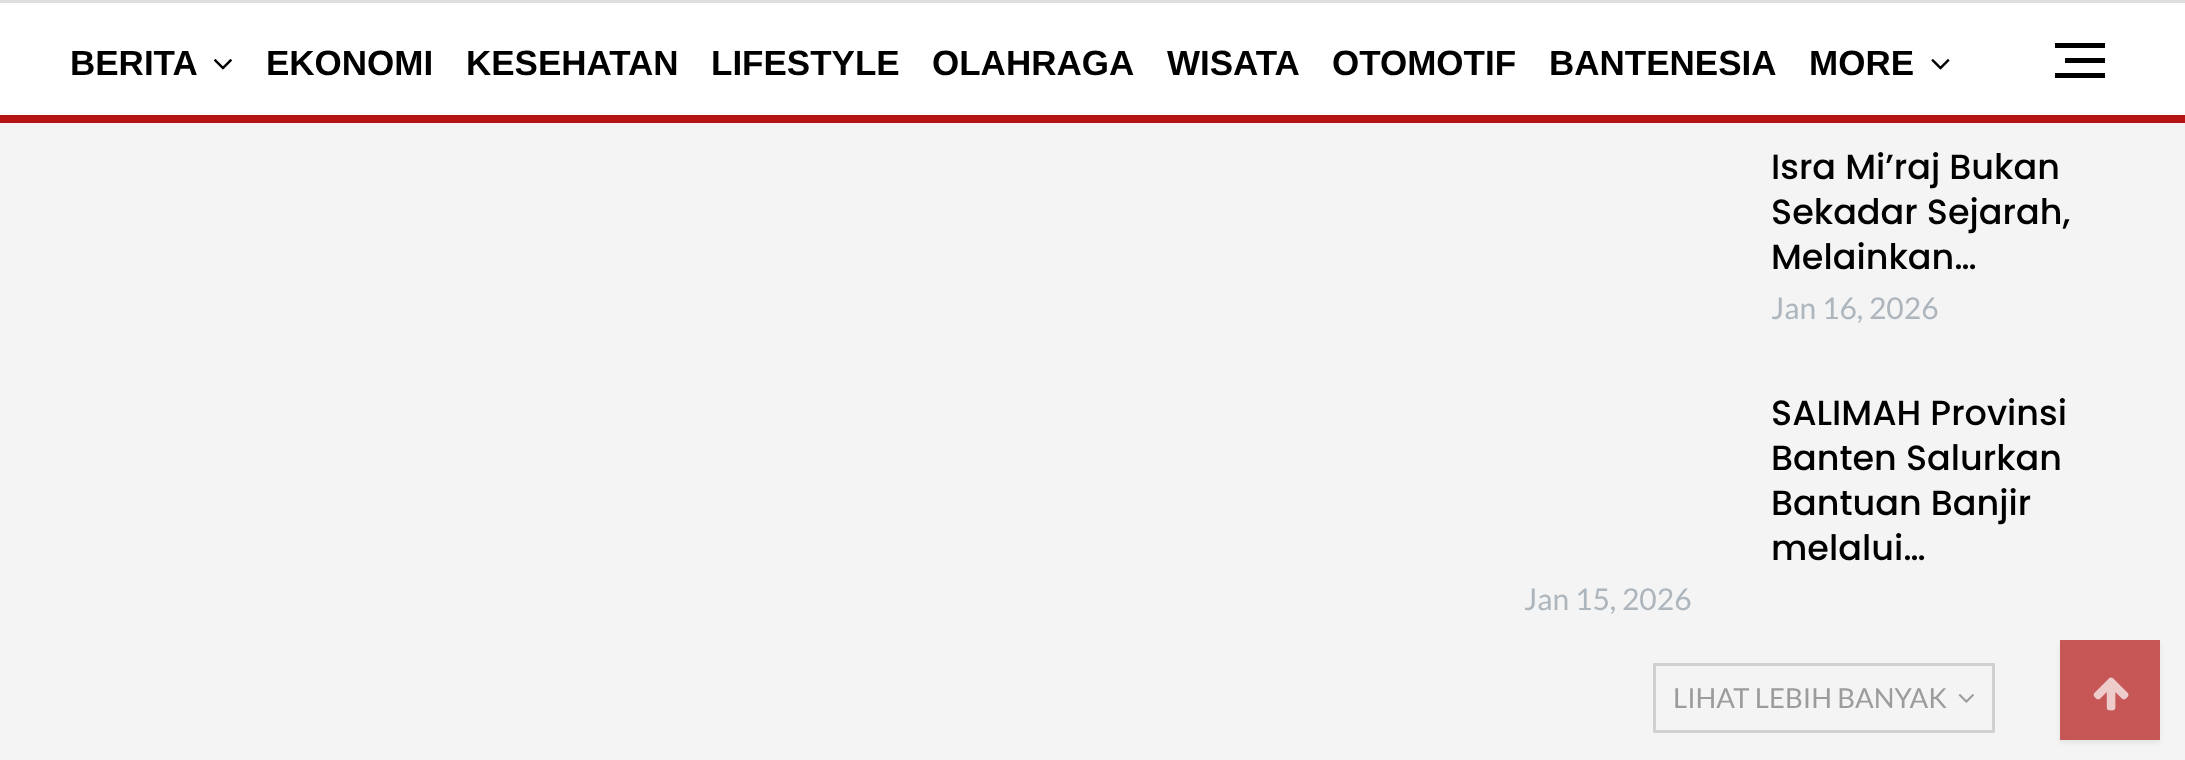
async function draw(canvas) {
  canvas.width = 2185;
  canvas.height = 760;
  const ctx = canvas.getContext('2d');
  ctx.miterLimit = 4;
  ctx.fontKerning = 'normal';
  function label(s, x, y, font, color) {
    ctx.font = font;
    ctx.fillStyle = color;
    ctx.fillText(s, x, y);
  }
  function rect(x, y, w, h, color) {
    ctx.fillStyle = color;
    ctx.fillRect(x, y, w, h);
  }
  async function image(src, x, y, w, h) {
    const img = new Image();
    img.src = src;
    await img.decode();
    ctx.drawImage(img, x, y, w, h);
  }

  rect(0, 0, 2185, 760, '#f4f4f4');
  rect(0, 3, 2185, 112, '#fff');
  rect(0, 0, 2185, 3, '#dedede');
  rect(0, 115, 2185, 8, '#b41414');
  label('BERITA', 70, 75, 'bold 35px Liberation Sans', '#000');
  await image('assets/img1.png', 213, 59, 19, 11);
  label('EKONOMI', 266, 75, 'bold 35px Liberation Sans', '#000');
  label('KESEHATAN', 466, 75, 'bold 35px Liberation Sans', '#000');
  label('LIFESTYLE', 711, 75, 'bold 35px Liberation Sans', '#000');
  label('OLAHRAGA', 932, 75, 'bold 35px Liberation Sans', '#000');
  label('WISATA', 1167, 75, 'bold 35px Liberation Sans', '#000');
  label('OTOMOTIF', 1332, 75, 'bold 35px Liberation Sans', '#000');
  label('BANTENESIA', 1549, 75, 'bold 35px Liberation Sans', '#000');
  label('MORE', 1809, 75, 'bold 35px Liberation Sans', '#000');
  await image('assets/img2.png', 1931, 59, 19, 11);
  rect(2065, 58, 40, 5, '#000');
  rect(2055, 43, 50, 5, '#000');
  rect(2055, 73, 50, 5, '#000');
  label('Isra Mi’raj Bukan', 1771, 179, '500 35px Poppins', '#000');
  label('Sekadar Sejarah,', 1771, 224, '500 35px Poppins', '#000');
  label('Melainkan…', 1771, 269, '500 35px Poppins', '#000');
  label('Jan 16, 2026', 1771, 319, '30px Lato', '#adb5bd');
  label('SALIMAH Provinsi', 1771, 425, '500 35px Poppins', '#000');
  label('Banten Salurkan', 1771, 470, '500 35px Poppins', '#000');
  label('Bantuan Banjir', 1771, 515, '500 35px Poppins', '#000');
  label('melalui…', 1771, 560, '500 35px Poppins', '#000');
  label('Jan 15, 2026', 1524, 610, '30px Lato', '#adb5bd');
  ctx.strokeStyle = '#d1d1d1';
  ctx.lineWidth = 3;
  ctx.strokeRect(1654.5, 664.5, 339, 67);
  label('LIHAT LEBIH BANYAK', 1673, 708, '27.5px Lato', '#9c9c9c');
  await image('assets/img3.png', 1958, 694, 16, 9);
  ctx.fillStyle = '#49494917';
  ctx.filter = 'blur(2.5px)';
  ctx.beginPath();
  ctx.rect(2060, 643, 100, 100);
  ctx.fill();
  ctx.filter = 'none';
  rect(2060, 640, 100, 100, '#c75757');
  await image('assets/img4.png', 2093, 677, 36, 34);
}

draw(document.querySelector('canvas'));
